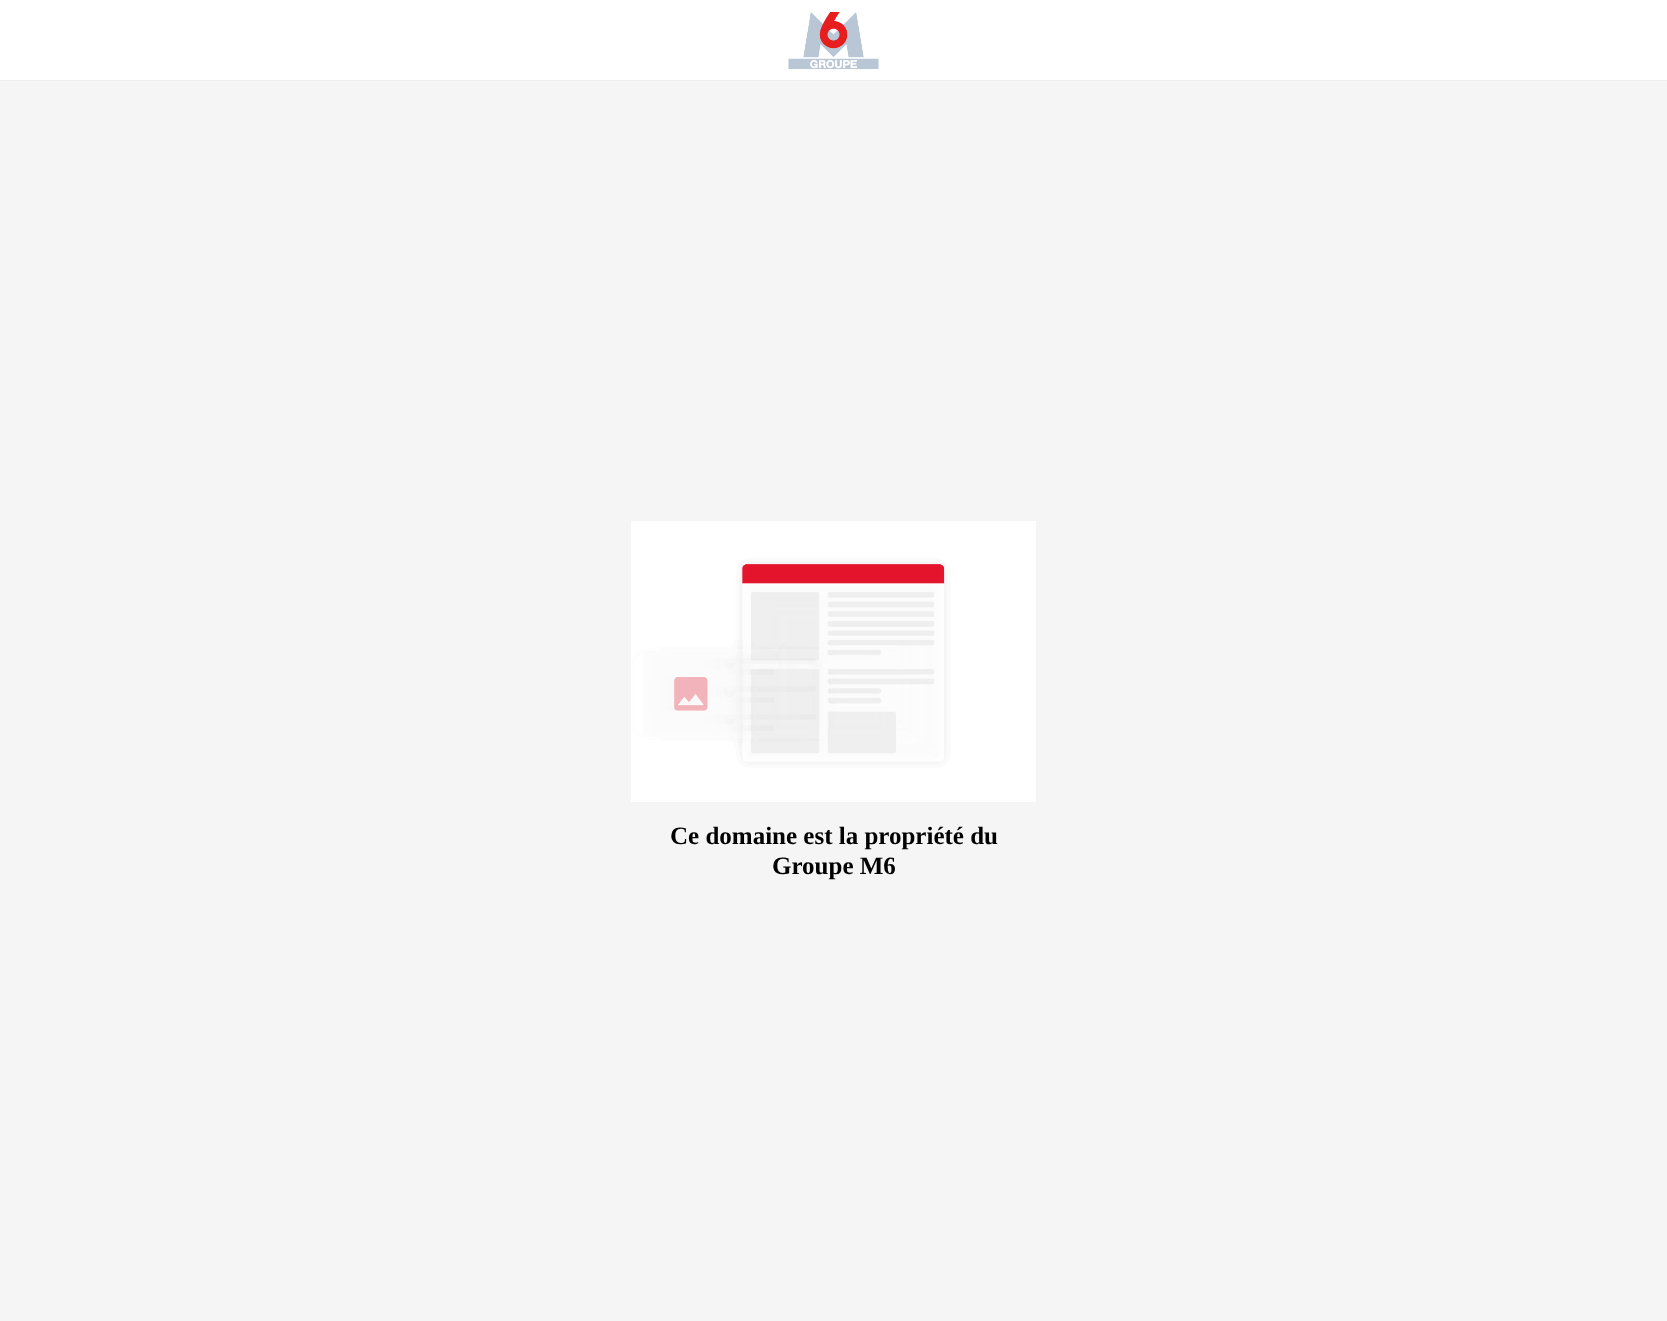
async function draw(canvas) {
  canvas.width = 1667;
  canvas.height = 1321;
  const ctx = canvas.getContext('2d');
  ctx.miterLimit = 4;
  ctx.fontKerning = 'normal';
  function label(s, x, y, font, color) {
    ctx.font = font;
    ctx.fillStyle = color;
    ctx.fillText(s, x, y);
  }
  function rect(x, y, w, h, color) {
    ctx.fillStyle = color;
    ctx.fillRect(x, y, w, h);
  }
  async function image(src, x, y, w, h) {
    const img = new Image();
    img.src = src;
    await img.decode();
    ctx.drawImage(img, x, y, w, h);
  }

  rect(0, 0, 1667, 1321, '#f5f5f5');
  rect(0, 0, 1667, 80, '#fff');
  rect(0, 80, 1667, 1, '#eee');
  await image('assets/img1.png', 788, 11, 91, 58);
  await image('assets/img2.png', 631, 521, 405, 281);
  label('Ce domaine est la propriété du', 670, 844, 'bold 25px Liberation Serif', '#000');
  label('Groupe M6', 772, 874, 'bold 25px Liberation Serif', '#000');
}

draw(document.querySelector('canvas'));
